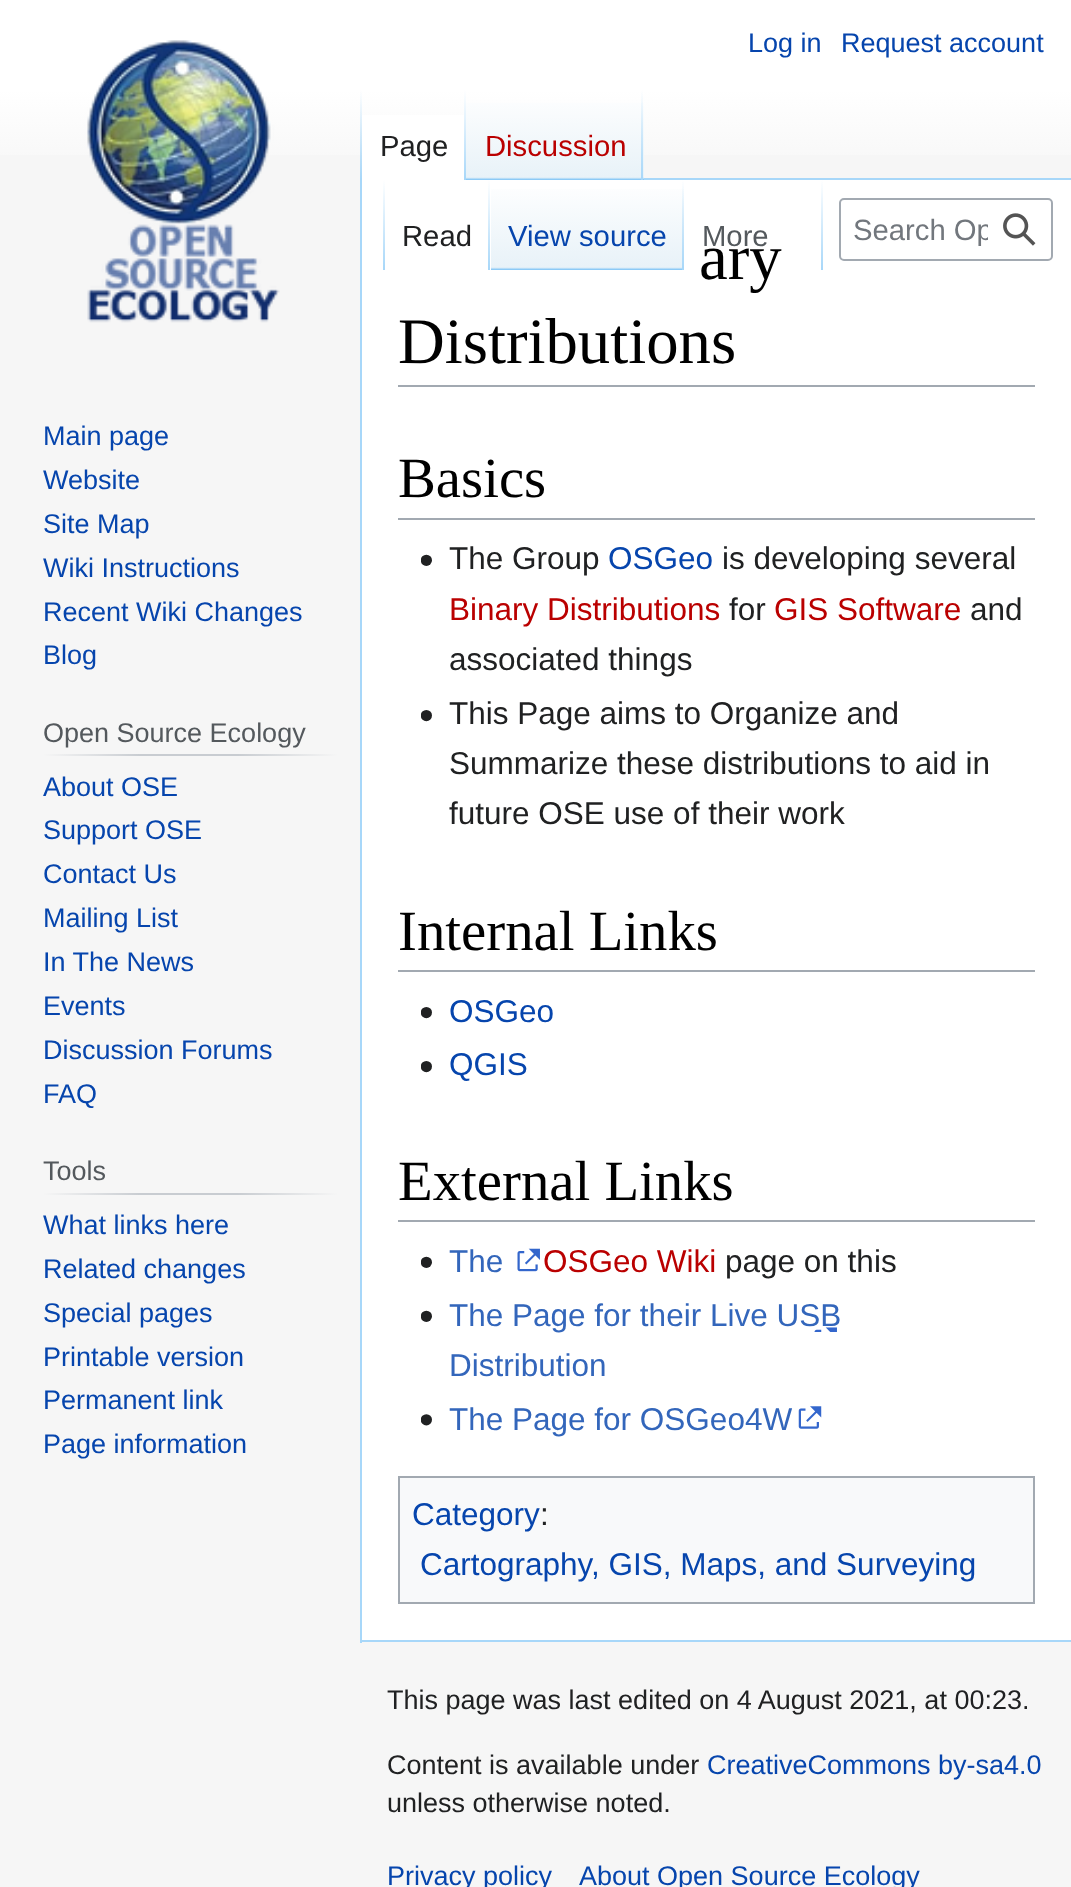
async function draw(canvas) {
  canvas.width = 1071;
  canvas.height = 1887;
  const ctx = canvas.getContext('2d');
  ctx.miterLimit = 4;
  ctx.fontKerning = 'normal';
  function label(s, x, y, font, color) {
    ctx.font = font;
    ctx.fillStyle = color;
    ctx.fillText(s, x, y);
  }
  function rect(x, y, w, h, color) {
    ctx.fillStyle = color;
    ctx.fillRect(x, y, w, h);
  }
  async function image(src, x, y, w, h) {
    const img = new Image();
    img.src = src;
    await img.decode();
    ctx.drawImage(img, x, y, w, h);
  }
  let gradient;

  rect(0, 0, 1071, 1887, '#f6f6f6');
  gradient = ctx.createLinearGradient(536, 0, 536, 180);
  gradient.addColorStop(0.5, '#fff');
  gradient.addColorStop(1, '#f6f6f6');
  ctx.fillStyle = gradient;
  ctx.fillRect(0, 0, 1071, 155);
  label('Log in', 748, 52, '27px Liberation Sans', '#0645ad');
  label('Request account', 841, 52, '27px Liberation Sans', '#0645ad');
  rect(360, 1640, 711, 2, '#a7d7f9');
  rect(360, 178, 2, 1465, '#a7d7f9');
  gradient = ctx.createLinearGradient(361, 90, 361, 180);
  gradient.addColorStop(0, '#a7d7f900');
  gradient.addColorStop(1, '#a7d7f9');
  ctx.fillStyle = gradient;
  ctx.fillRect(360, 90, 2, 90);
  rect(362, 115, 102, 65, '#fff');
  gradient = ctx.createLinearGradient(465, 90, 465, 180);
  gradient.addColorStop(0, '#fff');
  gradient.addColorStop(1, '#a7d7f9');
  ctx.fillStyle = gradient;
  ctx.fillRect(464, 90, 2, 90);
  label('Page', 380, 156, '29.25px Liberation Sans', '#202122');
  gradient = ctx.createLinearGradient(555, 180, 555, 90);
  gradient.addColorStop(0, '#77c1f6');
  gradient.addColorStop(0.03, '#e8f2f8');
  gradient.addColorStop(1, '#fff');
  ctx.fillStyle = gradient;
  ctx.fillRect(466, 103, 178, 77);
  gradient = ctx.createLinearGradient(642, 90, 642, 180);
  gradient.addColorStop(0, '#a7d7f900');
  gradient.addColorStop(1, '#a7d7f9');
  ctx.fillStyle = gradient;
  ctx.fillRect(641, 90, 2, 90);
  label('Discussion', 485, 156, '29.25px Liberation Sans', '#ba0000');
  rect(362, 180, 709, 1460, '#fff');
  gradient = ctx.createLinearGradient(384, 180, 384, 270);
  gradient.addColorStop(0, '#fff');
  gradient.addColorStop(1, '#a7d7f9');
  ctx.fillStyle = gradient;
  ctx.fillRect(383, 180, 2, 90);
  gradient = ctx.createLinearGradient(489, 180, 489, 270);
  gradient.addColorStop(0, '#fff');
  gradient.addColorStop(1, '#a7d7f9');
  ctx.fillStyle = gradient;
  ctx.fillRect(488, 180, 2, 90);
  label('Read', 402, 246, '29.25px Liberation Sans', '#202122');
  gradient = ctx.createLinearGradient(587, 270, 587, 180);
  gradient.addColorStop(0, '#77c1f6');
  gradient.addColorStop(0.03, '#e8f2f8');
  gradient.addColorStop(1, '#fff');
  ctx.fillStyle = gradient;
  ctx.fillRect(491, 189, 193, 81);
  gradient = ctx.createLinearGradient(683, 180, 683, 270);
  gradient.addColorStop(0, '#a7d7f900');
  gradient.addColorStop(1, '#a7d7f9');
  ctx.fillStyle = gradient;
  ctx.fillRect(682, 180, 2, 90);
  label('View source', 508, 246, '29.25px Liberation Sans', '#0645ad');
  gradient = ctx.createLinearGradient(822, 180, 822, 270);
  gradient.addColorStop(0, '#fff');
  gradient.addColorStop(1, '#a7d7f9');
  ctx.fillStyle = gradient;
  ctx.fillRect(821, 180, 2, 90);
  label('More', 702, 246, '29.25px Liberation Sans', '#54595d');
  ctx.beginPath();
  ctx.roundRect(840, 199, 212, 61, 4);
  ctx.strokeStyle = '#a2a9b1';
  ctx.lineWidth = 2;
  ctx.stroke();
  ctx.save();
  ctx.beginPath();
  ctx.rect(853, 214, 135, 34);
  ctx.clip();
  label('Search Op', 853, 240, '29.25px Liberation Sans', '#72777d');
  ctx.restore();
  await image('assets/img1.png', 1003, 213, 33, 33);
  await image('assets/img2.png', 87, 40, 193, 283);
  label('Main page', 43, 445, '27px Liberation Sans', '#0645ad');
  label('Website', 43, 489, '27px Liberation Sans', '#0645ad');
  label('Site Map', 43, 533, '27px Liberation Sans', '#0645ad');
  label('Wiki Instructions', 43, 577, '27px Liberation Sans', '#0645ad');
  label('Recent Wiki Changes', 43, 621, '27px Liberation Sans', '#0645ad');
  label('Blog', 43, 664, '27px Liberation Sans', '#0645ad');
  gradient = ctx.createLinearGradient(43, 755, 338, 755);
  gradient.addColorStop(0, '#f6f6f6');
  gradient.addColorStop(0.33, '#c8ccd1');
  gradient.addColorStop(0.66, '#c8ccd1');
  gradient.addColorStop(1, '#f6f6f6');
  ctx.fillStyle = gradient;
  ctx.fillRect(43, 754, 295, 2);
  label('Open Source Ecology', 43, 742, '27px Liberation Sans', '#54595d');
  label('About OSE', 43, 796, '27px Liberation Sans', '#0645ad');
  label('Support OSE', 43, 839, '27px Liberation Sans', '#0645ad');
  label('Contact Us', 43, 883, '27px Liberation Sans', '#0645ad');
  label('Mailing List', 43, 927, '27px Liberation Sans', '#0645ad');
  label('In The News', 43, 971, '27px Liberation Sans', '#0645ad');
  label('Events', 43, 1015, '27px Liberation Sans', '#0645ad');
  label('Discussion Forums', 43, 1059, '27px Liberation Sans', '#0645ad');
  label('FAQ', 43, 1103, '27px Liberation Sans', '#0645ad');
  gradient = ctx.createLinearGradient(43, 1194, 338, 1194);
  gradient.addColorStop(0, '#f6f6f6');
  gradient.addColorStop(0.33, '#c8ccd1');
  gradient.addColorStop(0.66, '#c8ccd1');
  gradient.addColorStop(1, '#f6f6f6');
  ctx.fillStyle = gradient;
  ctx.fillRect(43, 1193, 295, 2);
  label('Tools', 43, 1180, '27px Liberation Sans', '#54595d');
  label('What links here', 43, 1234, '27px Liberation Sans', '#0645ad');
  label('Related changes', 43, 1278, '27px Liberation Sans', '#0645ad');
  label('Special pages', 43, 1322, '27px Liberation Sans', '#0645ad');
  label('Printable version', 43, 1366, '27px Liberation Sans', '#0645ad');
  label('Permanent link', 43, 1409, '27px Liberation Sans', '#0645ad');
  label('Page information', 43, 1453, '27px Liberation Sans', '#0645ad');
  rect(644, 178, 427, 2, '#a7d7f9');
  rect(398, 385, 637, 2, '#a2a9b1');
  label('ary', 699, 279, '64.75px Liberation Serif', '#000');
  label('Distributions', 398, 363, '64.75px Liberation Serif', '#000');
  rect(398, 518, 637, 2, '#a2a9b1');
  label('Basics', 398, 497, '56.75px Liberation Serif', '#000');
  await image('assets/img3.png', 421, 554, 11, 12);
  label('The Group', 449, 569, '31.5px Liberation Sans', '#202122');
  label('OSGeo', 608, 569, '31.5px Liberation Sans', '#0645ad');
  label('is developing several', 722, 569, '31.5px Liberation Sans', '#202122');
  label('Binary Distributions', 449, 620, '31.5px Liberation Sans', '#ba0000');
  label('for', 729, 620, '31.5px Liberation Sans', '#202122');
  label('GIS Software', 774, 620, '31.5px Liberation Sans', '#ba0000');
  label('and', 970, 620, '31.5px Liberation Sans', '#202122');
  label('associated things', 449, 670, '31.5px Liberation Sans', '#202122');
  await image('assets/img4.png', 421, 710, 11, 12);
  label('This Page aims to Organize and', 449, 724, '31.5px Liberation Sans', '#202122');
  label('Summarize these distributions to aid in', 449, 774, '31.5px Liberation Sans', '#202122');
  label('future OSE use of their work', 449, 824, '31.5px Liberation Sans', '#202122');
  rect(398, 970, 637, 2, '#a2a9b1');
  label('Internal Links', 398, 950, '56.75px Liberation Serif', '#000');
  await image('assets/img4.png', 421, 1007, 11, 12);
  label('OSGeo', 449, 1022, '31.5px Liberation Sans', '#0645ad');
  await image('assets/img4.png', 421, 1061, 11, 12);
  label('QGIS', 449, 1075, '31.5px Liberation Sans', '#0645ad');
  rect(398, 1220, 637, 2, '#a2a9b1');
  label('External Links', 398, 1200, '56.75px Liberation Serif', '#000');
  await image('assets/img3.png', 421, 1256, 11, 12);
  label('The', 449, 1272, '31.5px Liberation Sans', '#36b');
  await image('assets/img5.png', 517, 1248, 23, 24);
  label('OSGeo Wiki', 543, 1272, '31.5px Liberation Sans', '#ba0000');
  label('page on this', 725, 1272, '31.5px Liberation Sans', '#202122');
  await image('assets/img3.png', 421, 1310, 11, 12);
  await image('assets/img6.png', 814, 1327, 23, 5);
  label('The Page for their Live USB', 449, 1326, '31.5px Liberation Sans', '#36b');
  label('Distribution', 449, 1376, '31.5px Liberation Sans', '#36b');
  await image('assets/img7.png', 421, 1414, 11, 12);
  label('The Page for OSGeo4W', 449, 1430, '31.5px Liberation Sans', '#36b');
  await image('assets/img8.png', 798, 1406, 24, 23);
  ctx.fillStyle = '#f8f9fa';
  ctx.beginPath();
  ctx.rect(399, 1477, 635, 126);
  ctx.fill();
  ctx.stroke();
  label('Category', 412, 1525, '31.5px Liberation Sans', '#0645ad');
  label(':', 540, 1525, '31.5px Liberation Sans', '#202122');
  label('Cartography, GIS, Maps, and Surveying', 420, 1575, '31.5px Liberation Sans', '#0645ad');
  label('This page was last edited on 4 August 2021, at 00:23.', 387, 1709, '27px Liberation Sans', '#202122');
  label('Content is available under', 387, 1774, '27px Liberation Sans', '#202122');
  label('CreativeCommons by-sa4.0', 707, 1774, '27px Liberation Sans', '#0645ad');
  label('unless otherwise noted.', 387, 1812, '27px Liberation Sans', '#202122');
  label('Privacy policy', 387, 1885, '27px Liberation Sans', '#0645ad');
  label('About Open Source Ecology', 579, 1885, '27px Liberation Sans', '#0645ad');
}

draw(document.querySelector('canvas'));
